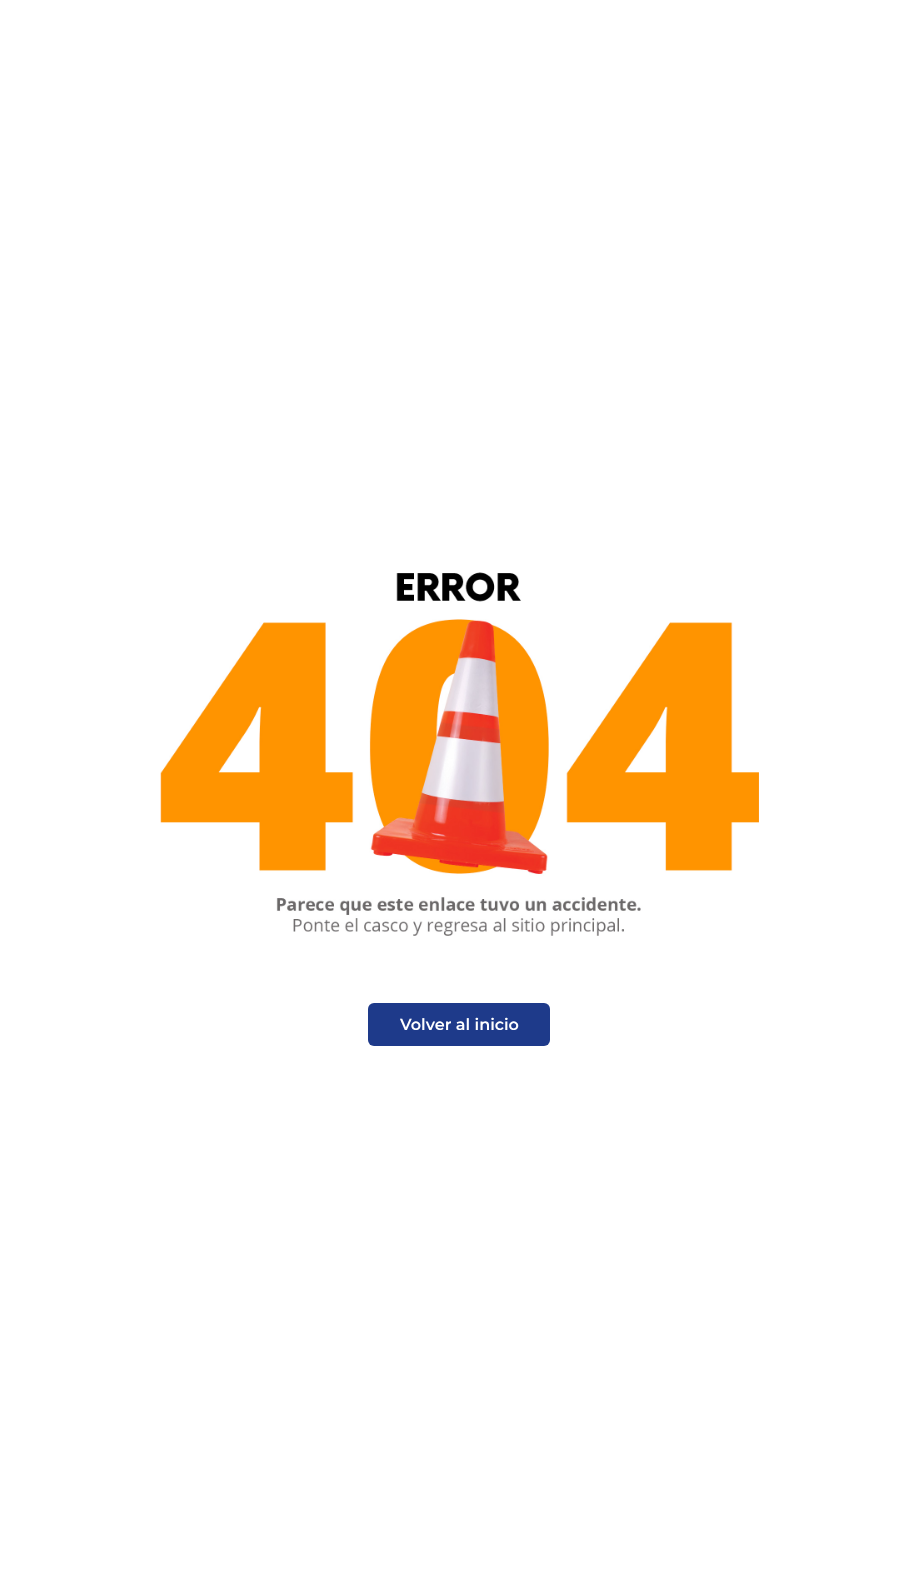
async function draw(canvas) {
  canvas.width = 918;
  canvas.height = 1575;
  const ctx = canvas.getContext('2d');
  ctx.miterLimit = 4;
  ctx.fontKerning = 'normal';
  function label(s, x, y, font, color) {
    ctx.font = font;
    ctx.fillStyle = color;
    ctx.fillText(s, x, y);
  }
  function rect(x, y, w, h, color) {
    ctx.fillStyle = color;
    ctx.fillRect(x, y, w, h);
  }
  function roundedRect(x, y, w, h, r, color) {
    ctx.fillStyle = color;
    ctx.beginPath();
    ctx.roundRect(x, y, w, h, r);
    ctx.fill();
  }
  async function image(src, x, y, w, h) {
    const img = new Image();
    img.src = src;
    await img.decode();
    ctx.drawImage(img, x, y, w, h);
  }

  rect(0, 0, 918, 1575, '#fff');
  await image('assets/img1.png', 160, 572, 599, 364);
  roundedRect(368, 1003, 182, 43, 6, '#1e3a8a');
  label('Volver al inicio', 400, 1030, '600 16px Montserrat', '#fff');
}

draw(document.querySelector('canvas'));
